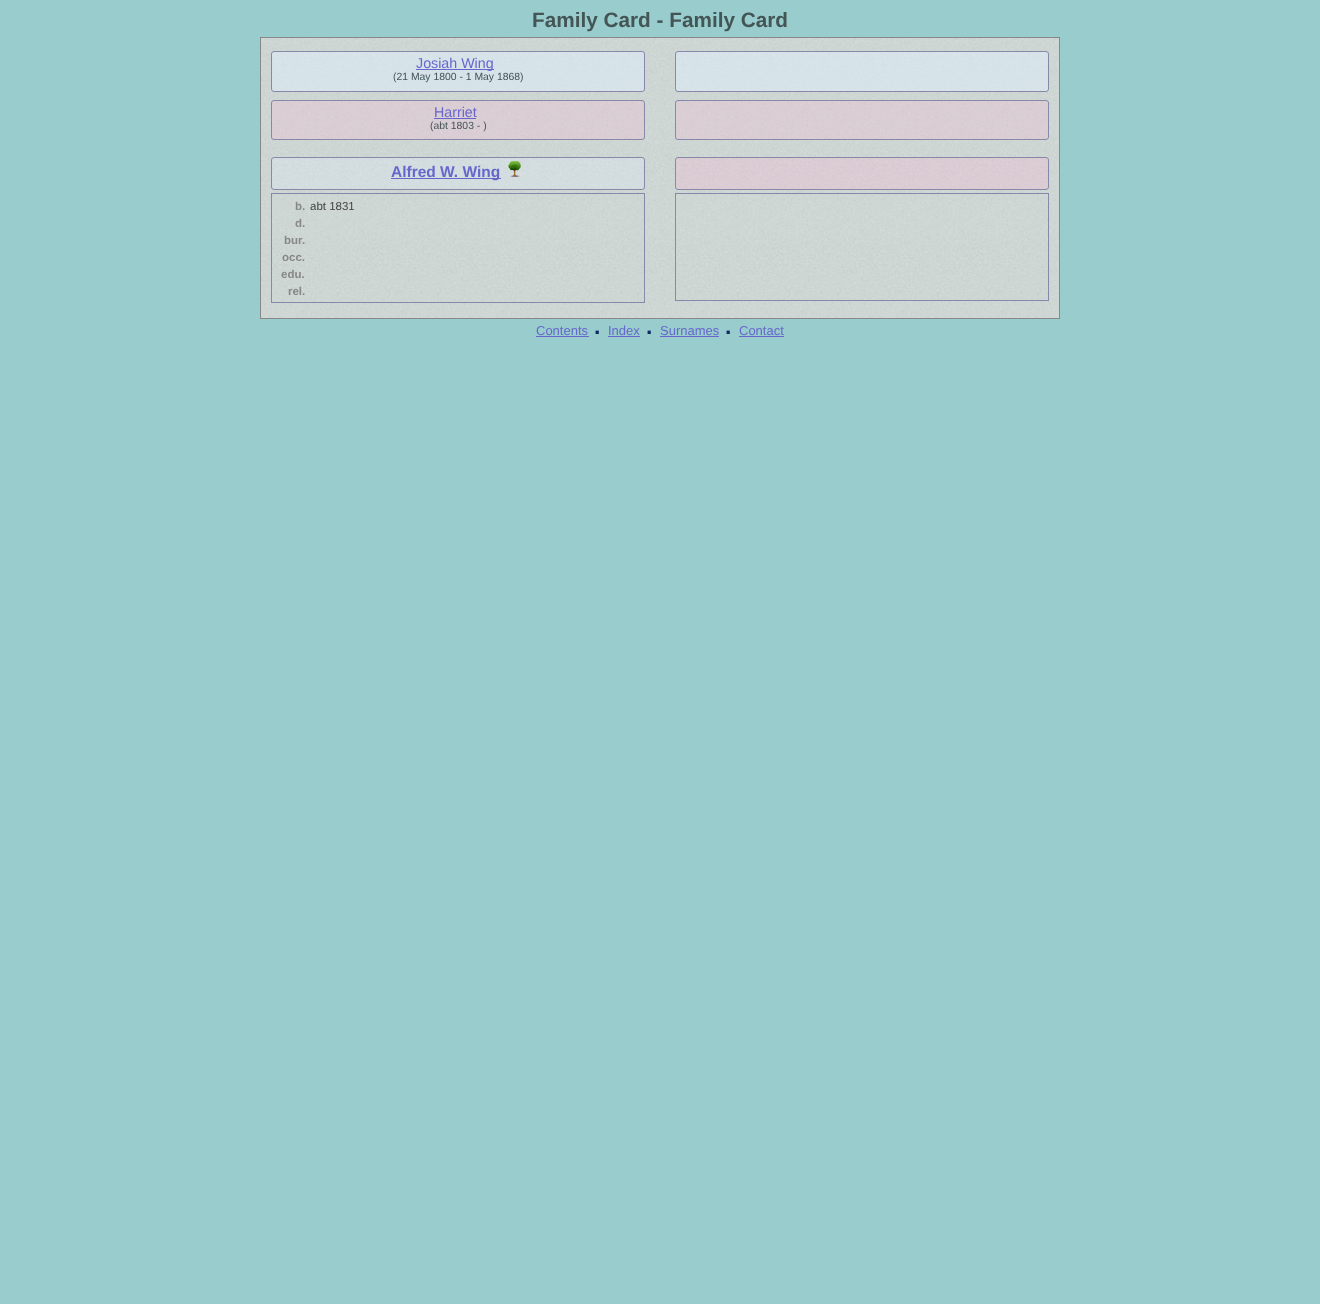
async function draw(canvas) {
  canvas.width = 1320;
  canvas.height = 1304;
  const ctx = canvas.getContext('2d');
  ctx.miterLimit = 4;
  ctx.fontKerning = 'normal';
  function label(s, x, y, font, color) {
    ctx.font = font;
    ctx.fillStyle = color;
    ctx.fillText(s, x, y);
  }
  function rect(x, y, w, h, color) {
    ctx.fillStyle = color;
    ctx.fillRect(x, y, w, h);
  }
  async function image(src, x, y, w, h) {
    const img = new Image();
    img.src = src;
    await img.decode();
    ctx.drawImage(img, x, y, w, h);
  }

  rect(0, 0, 1320, 1304, '#9cc');
  label('Family Card - Family Card', 532, 27, 'bold 20.75px Liberation Sans', '#455');
  await image('assets/img1.png', 261, 38, 798, 280);
  ctx.strokeStyle = '#888';
  ctx.strokeRect(260.5, 37.5, 799, 281);
  ctx.fillStyle = '#e0effe82';
  ctx.beginPath();
  ctx.roundRect(271.5, 51.5, 373, 40, 2.5);
  ctx.fill();
  ctx.strokeStyle = '#88a';
  ctx.stroke();
  rect(416, 69, 78, 1, '#66c');
  label('Josiah Wing', 416, 68, '14.25px Liberation Sans', '#66c');
  label('(21 May 1800 - 1 May 1868)', 393, 80, '10.4px Liberation Sans', '#455');
  ctx.fillStyle = '#e0effe82';
  ctx.beginPath();
  ctx.roundRect(675.5, 51.5, 373, 40, 2.5);
  ctx.fill();
  ctx.stroke();
  ctx.fillStyle = '#fcb7d647';
  ctx.beginPath();
  ctx.roundRect(271.5, 100.5, 373, 39, 2.5);
  ctx.fill();
  ctx.stroke();
  label('Harriet', 434, 117, '14.25px Liberation Sans', '#66c');
  rect(434, 118, 42, 1, '#66c');
  label('(abt 1803 - )', 430, 129, '10.4px Liberation Sans', '#455');
  ctx.fillStyle = '#fcb7d647';
  ctx.beginPath();
  ctx.roundRect(675.5, 100.5, 373, 39, 2.5);
  ctx.fill();
  ctx.stroke();
  ctx.fillStyle = '#e0effe4d';
  ctx.beginPath();
  ctx.roundRect(271.5, 157.5, 373, 32, 2.5);
  ctx.fill();
  ctx.stroke();
  rect(391, 178, 110, 1, '#66c');
  label('Alfred W. Wing', 391, 177, 'bold 15.5px Liberation Sans', '#66c');
  await image('assets/img2.png', 508, 161, 13, 16);
  ctx.fillStyle = '#fcb7d64d';
  ctx.beginPath();
  ctx.roundRect(675.5, 157.5, 373, 32, 2.5);
  ctx.fill();
  ctx.stroke();
  ctx.strokeRect(271.5, 193.5, 373, 109);
  label('b.', 295, 210, 'bold 11.5px Liberation Sans', '#888');
  label('abt 1831', 310, 210, '11.5px Liberation Sans', '#444');
  label('d.', 295, 227, 'bold 11.5px Liberation Sans', '#888');
  label('bur.', 284, 244, 'bold 11.5px Liberation Sans', '#888');
  label('occ.', 282, 261, 'bold 11.5px Liberation Sans', '#888');
  label('edu.', 281, 278, 'bold 11.5px Liberation Sans', '#888');
  label('rel.', 288, 295, 'bold 11.5px Liberation Sans', '#888');
  ctx.strokeRect(675.5, 193.5, 373, 107);
  label('Contents', 536, 335, '13px Liberation Sans', '#66c');
  rect(536, 336, 53, 1, '#66c');
  label('·', 594, 340, 'bold 23px Liberation Sans', '#102a69');
  label('Index', 608, 335, '13px Liberation Sans', '#66c');
  rect(608, 336, 32, 1, '#66c');
  label('·', 646, 340, 'bold 23px Liberation Sans', '#102a69');
  label('Surnames', 660, 335, '13px Liberation Sans', '#66c');
  rect(660, 336, 59, 1, '#66c');
  label('·', 725, 340, 'bold 23px Liberation Sans', '#102a69');
  label('Contact', 739, 335, '13px Liberation Sans', '#66c');
  rect(739, 336, 45, 1, '#66c');
}

draw(document.querySelector('canvas'));
